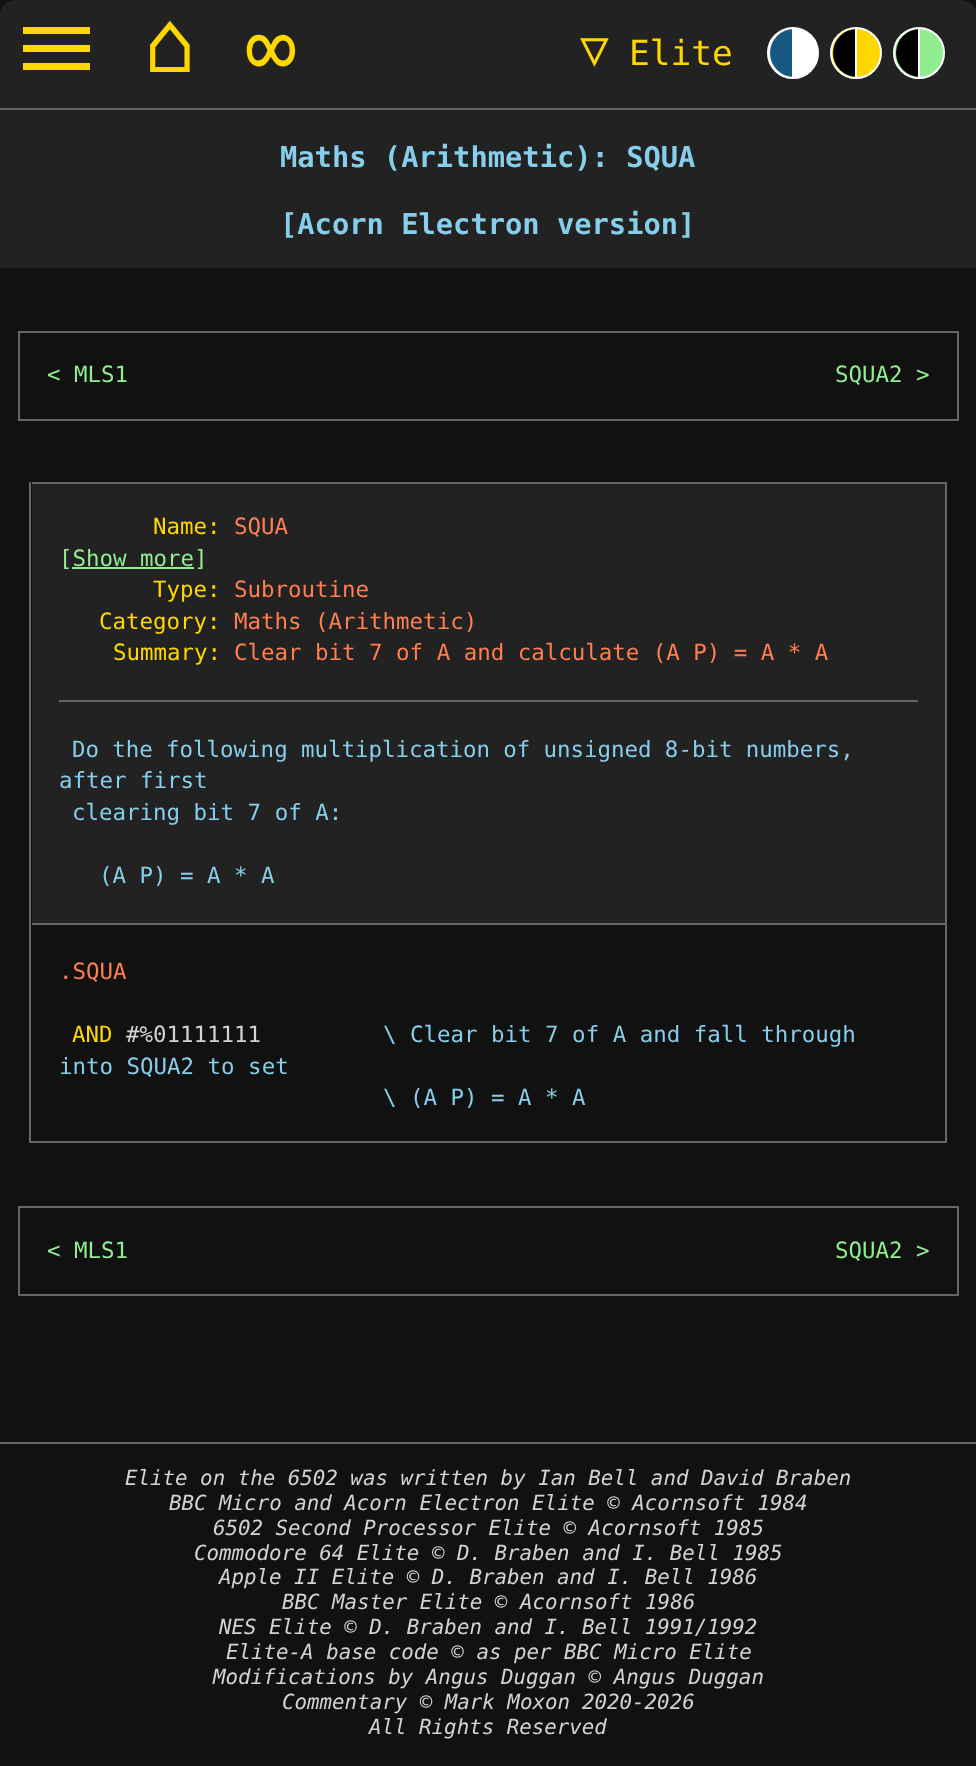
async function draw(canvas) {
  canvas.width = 976;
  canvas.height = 1766;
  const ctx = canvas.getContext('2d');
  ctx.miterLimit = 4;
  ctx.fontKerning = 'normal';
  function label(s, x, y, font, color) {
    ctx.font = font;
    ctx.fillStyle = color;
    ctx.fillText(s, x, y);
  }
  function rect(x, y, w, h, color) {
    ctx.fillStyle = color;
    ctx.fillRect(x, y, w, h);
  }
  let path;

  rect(0, 0, 976, 1766, '#111');
  ctx.fillStyle = '#222';
  path = new Path2D('M16 0H961C970 0 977 7 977 16V108H0V16C0 7 7 0 16 0Z');
  ctx.fill(path);
  ctx.beginPath();
  ctx.roundRect(0, 0, 113, 97, [16, 0, 0, 0]);
  ctx.fill();
  rect(23, 27, 67, 7, '#ffd700');
  rect(23, 45, 67, 7, '#ffd700');
  rect(23, 63, 67, 7, '#ffd700');
  label('⌂', 144, 72, '86px DejaVu Sans Mono', '#ffd700');
  label('∞', 245, 77, '86px DejaVu Sans Mono', '#ffd700');
  label('▽', 580, 65, '48px DejaVu Sans Mono', '#ffd700');
  label('Elite', 629, 65, '34.5px DejaVu Sans Mono', '#ffd700');
  ctx.fillStyle = '#fff';
  ctx.beginPath();
  ctx.arc(793, 53, 25, 0, 2 * Math.PI);
  ctx.fill();
  ctx.strokeStyle = '#fff';
  ctx.lineWidth = 2;
  ctx.stroke();
  ctx.fillStyle = '#185882';
  ctx.beginPath();
  ctx.roundRect(770, 29, 24, 48, [24, 0, 0, 24]);
  ctx.fill();
  rect(792, 29, 2, 48, '#fff');
  ctx.fillStyle = '#ffd700';
  ctx.beginPath();
  ctx.arc(856, 53, 25, 0, 2 * Math.PI);
  ctx.fill();
  ctx.stroke();
  ctx.fillStyle = '#000';
  ctx.beginPath();
  ctx.roundRect(833, 29, 24, 48, [24, 0, 0, 24]);
  ctx.fill();
  rect(855, 29, 2, 48, '#fff');
  ctx.fillStyle = '#90ee90';
  ctx.beginPath();
  ctx.arc(919, 53, 25, 0, 2 * Math.PI);
  ctx.fill();
  ctx.stroke();
  ctx.fillStyle = '#000';
  ctx.beginPath();
  ctx.roundRect(896, 29, 24, 48, [24, 0, 0, 24]);
  ctx.fill();
  rect(918, 29, 2, 48, '#fff');
  rect(0, 110, 976, 158, '#222');
  rect(0, 108, 976, 2, '#666');
  label('Maths (Arithmetic): SQUA', 280, 167, 'bold 28.75px DejaVu Sans Mono', '#87ceeb');
  label('[Acorn Electron version]', 280, 234, 'bold 28.75px DejaVu Sans Mono', '#87ceeb');
  ctx.strokeStyle = '#666';
  ctx.strokeRect(19, 332, 939, 88);
  label('< MLS1', 47, 382, '22.45px DejaVu Sans Mono', '#90ee90');
  label('SQUA2 >', 835, 382, '22.45px DejaVu Sans Mono', '#90ee90');
  rect(945, 482, 2, 661, '#666');
  rect(29, 1141, 918, 2, '#666');
  rect(29, 482, 2, 661, '#666');
  rect(32, 484, 913, 439, '#222');
  rect(32, 482, 913, 2, '#666');
  rect(32, 923, 913, 2, '#666');
  label('Name:', 153, 534, '22.45px DejaVu Sans Mono', '#ffd700');
  label('SQUA', 234, 534, '22.45px DejaVu Sans Mono', '#ff7f50');
  label('[Show more]', 59, 566, '22.45px DejaVu Sans Mono', '#90ee90');
  rect(72, 567, 122, 2, '#90ee90');
  label('Type:', 153, 597, '22.45px DejaVu Sans Mono', '#ffd700');
  label('Subroutine', 234, 597, '22.45px DejaVu Sans Mono', '#ff7f50');
  label('Category:', 99, 629, '22.45px DejaVu Sans Mono', '#ffd700');
  label('Maths (Arithmetic)', 234, 629, '22.45px DejaVu Sans Mono', '#ff7f50');
  label('Summary:', 113, 660, '22.45px DejaVu Sans Mono', '#ffd700');
  label('Clear bit 7 of A and calculate (A P) = A * A', 234, 660, '22.45px DejaVu Sans Mono', '#ff7f50');
  rect(59, 700, 859, 2, '#666');
  ctx.wordSpacing = '-0.25px';
  label('Do the following multiplication of unsigned 8-bit numbers,', 72, 757, '22.45px DejaVu Sans Mono', '#87ceeb');
  ctx.wordSpacing = '0px';
  label('after first', 59, 788, '22.45px DejaVu Sans Mono', '#87ceeb');
  label('clearing bit 7 of A:', 72, 820, '22.45px DejaVu Sans Mono', '#87ceeb');
  label('(A P) = A * A', 99, 883, '22.45px DejaVu Sans Mono', '#87ceeb');
  label('.SQUA', 59, 979, '22.45px DejaVu Sans Mono', '#ff7f50');
  label('AND', 72, 1042, '22.45px DejaVu Sans Mono', '#ffd700');
  label('#%01111111', 126, 1042, '22.45px DejaVu Sans Mono', '#d3d3d3');
  label('\\ Clear bit 7 of A and fall through', 383, 1042, '22.45px DejaVu Sans Mono', '#87ceeb');
  label('into SQUA2 to set', 59, 1074, '22.45px DejaVu Sans Mono', '#87ceeb');
  label('\\ (A P) = A * A', 383, 1105, '22.45px DejaVu Sans Mono', '#87ceeb');
  ctx.strokeRect(19, 1207, 939, 88);
  label('< MLS1', 47, 1258, '22.45px DejaVu Sans Mono', '#90ee90');
  label('SQUA2 >', 835, 1258, '22.45px DejaVu Sans Mono', '#90ee90');
  rect(0, 1442, 976, 2, '#666');
  label('Elite on the 6502 was written by Ian Bell and David Braben', 125, 1485, 'italic 20.8px DejaVu Sans Mono', '#d3d3d3');
  label('BBC Micro and Acorn Electron Elite © Acornsoft 1984', 169, 1510, 'italic 20.8px DejaVu Sans Mono', '#d3d3d3');
  label('6502 Second Processor Elite © Acornsoft 1985', 213, 1535, 'italic 20.8px DejaVu Sans Mono', '#d3d3d3');
  label('Commodore 64 Elite © D. Braben and I. Bell 1985', 194, 1560, 'italic 20.8px DejaVu Sans Mono', '#d3d3d3');
  label('Apple II Elite © D. Braben and I. Bell 1986', 219, 1584, 'italic 20.8px DejaVu Sans Mono', '#d3d3d3');
  label('BBC Master Elite © Acornsoft 1986', 282, 1609, 'italic 20.8px DejaVu Sans Mono', '#d3d3d3');
  label('NES Elite © D. Braben and I. Bell 1991/1992', 219, 1634, 'italic 20.8px DejaVu Sans Mono', '#d3d3d3');
  label('Elite-A base code © as per BBC Micro Elite', 226, 1659, 'italic 20.8px DejaVu Sans Mono', '#d3d3d3');
  label('Modifications by Angus Duggan © Angus Duggan', 213, 1684, 'italic 20.8px DejaVu Sans Mono', '#d3d3d3');
  label('Commentary © Mark Moxon', 282, 1709, 'italic 20.8px DejaVu Sans Mono', '#d3d3d3');
  label('2020-2026', 582, 1709, 'italic 20.8px DejaVu Sans Mono', '#d3d3d3');
  label('All Rights Reserved', 369, 1734, 'italic 20.8px DejaVu Sans Mono', '#d3d3d3');
}

draw(document.querySelector('canvas'));
